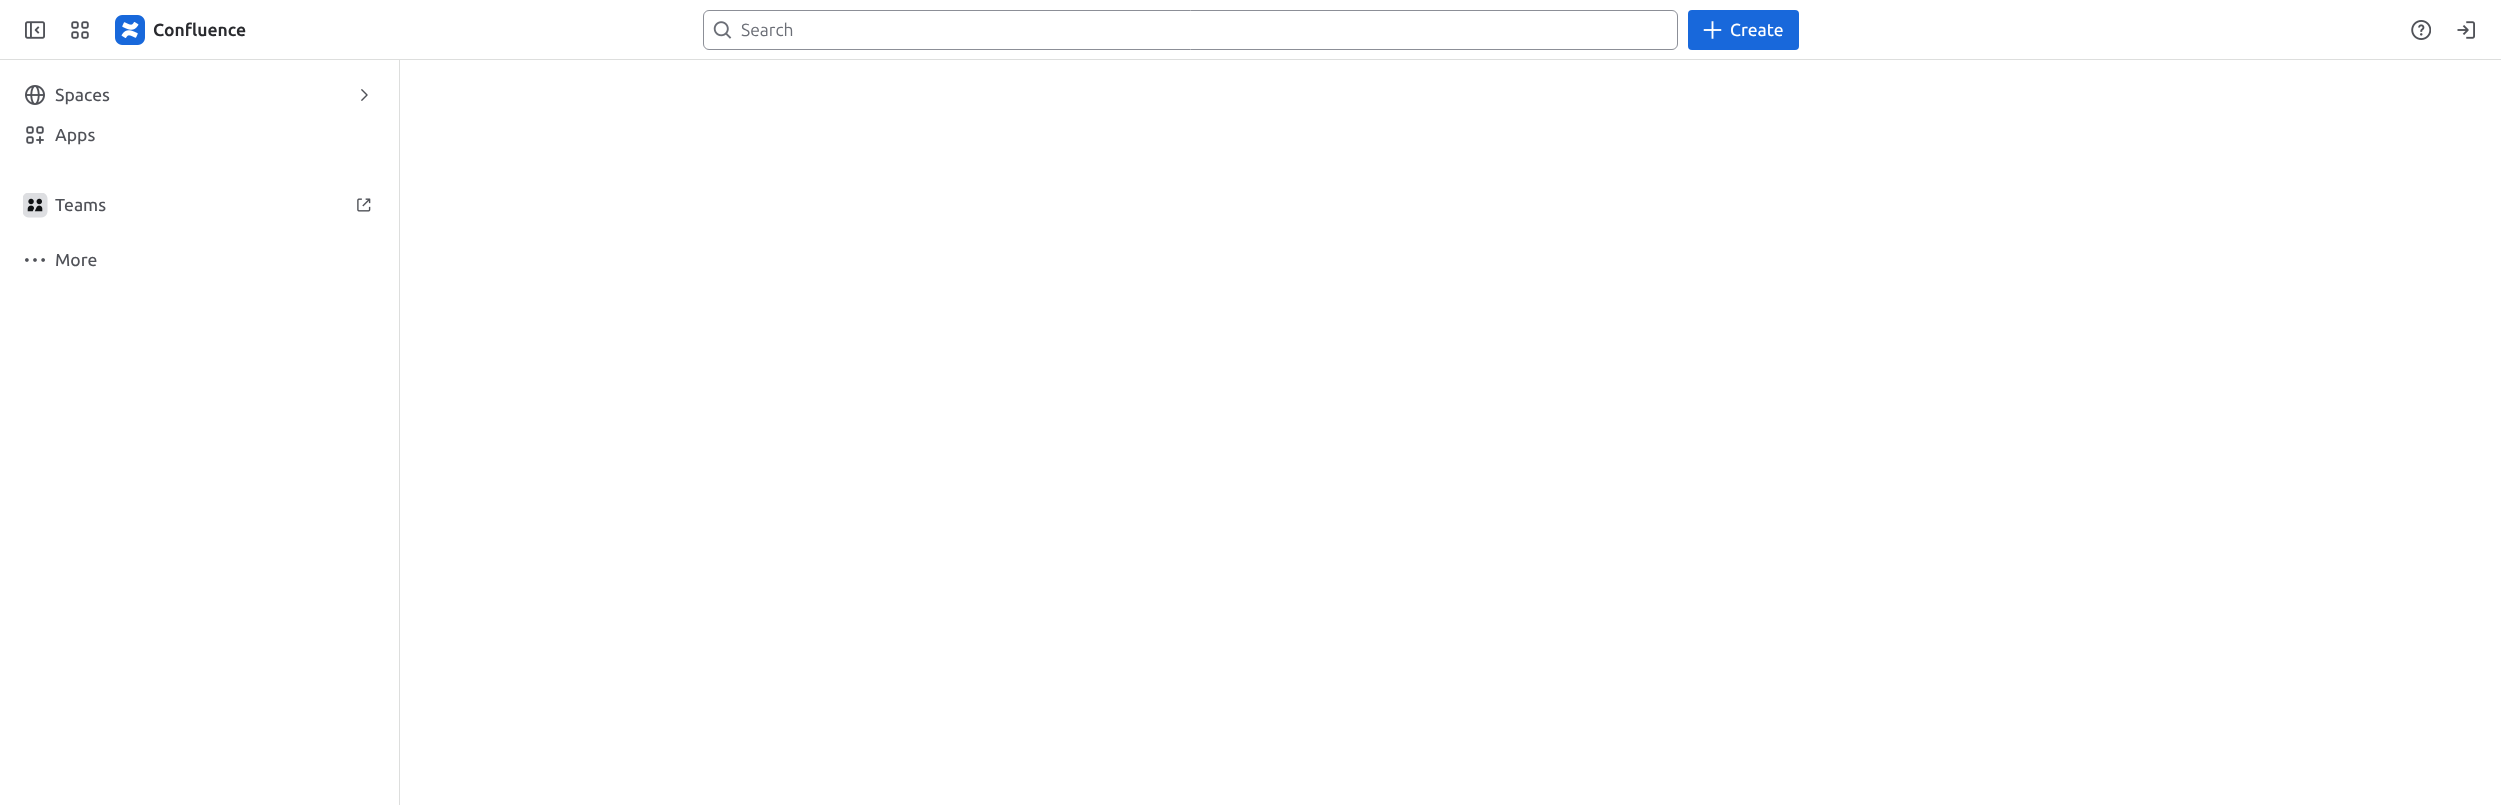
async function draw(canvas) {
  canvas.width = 2501;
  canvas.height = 805;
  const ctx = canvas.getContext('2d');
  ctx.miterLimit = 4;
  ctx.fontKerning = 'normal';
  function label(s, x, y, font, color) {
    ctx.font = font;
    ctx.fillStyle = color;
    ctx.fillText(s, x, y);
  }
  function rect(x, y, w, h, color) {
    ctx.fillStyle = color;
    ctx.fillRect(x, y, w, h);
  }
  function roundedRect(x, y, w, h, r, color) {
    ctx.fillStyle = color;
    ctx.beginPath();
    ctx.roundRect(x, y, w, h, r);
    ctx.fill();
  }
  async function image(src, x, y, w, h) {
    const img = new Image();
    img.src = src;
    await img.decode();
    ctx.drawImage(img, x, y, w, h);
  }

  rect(0, 0, 2501, 805, '#fff');
  rect(0, 59, 2501, 1, '#dddedd');
  await image('assets/img1.png', 25, 21, 20, 18);
  await image('assets/img2.png', 71, 21, 18, 18);
  await image('assets/img3.png', 115, 15, 30, 30);
  label('Confluence', 153, 36, 'bold 17.5px Ubuntu', '#292a2e');
  ctx.beginPath();
  ctx.roundRect(703.5, 10.5, 974, 39, 5.5);
  ctx.strokeStyle = '#8c8f97';
  ctx.stroke();
  await image('assets/img4.png', 713, 21, 19, 18);
  label('Search', 741, 36, '17.5px Ubuntu', '#6b6e76');
  roundedRect(1688, 10, 111, 40, 4, '#1868db');
  await image('assets/img5.png', 1703, 21, 19, 18);
  label('Create', 1730, 36, '500 17.5px Ubuntu', '#fff');
  await image('assets/img6.png', 2411, 20, 20, 20);
  await image('assets/img7.png', 2457, 21, 18, 18);
  rect(399, 60, 1, 745, '#dddedd');
  await image('assets/img8.png', 25, 85, 20, 20);
  label('Spaces', 55, 101, '500 17.5px Ubuntu', '#505258');
  await image('assets/img9.png', 361, 89, 7, 12);
  await image('assets/img10.png', 26, 126, 18, 18);
  label('Apps', 55, 141, '500 17.5px Ubuntu', '#505258');
  await image('assets/img11.png', 23, 193, 25, 25);
  label('Teams', 55, 211, '500 17.5px Ubuntu', '#505258');
  await image('assets/img12.png', 357, 198, 14, 14);
  await image('assets/img13.png', 25, 258, 20, 4);
  label('More', 55, 266, '500 17.5px Ubuntu', '#505258');
}

draw(document.querySelector('canvas'));
